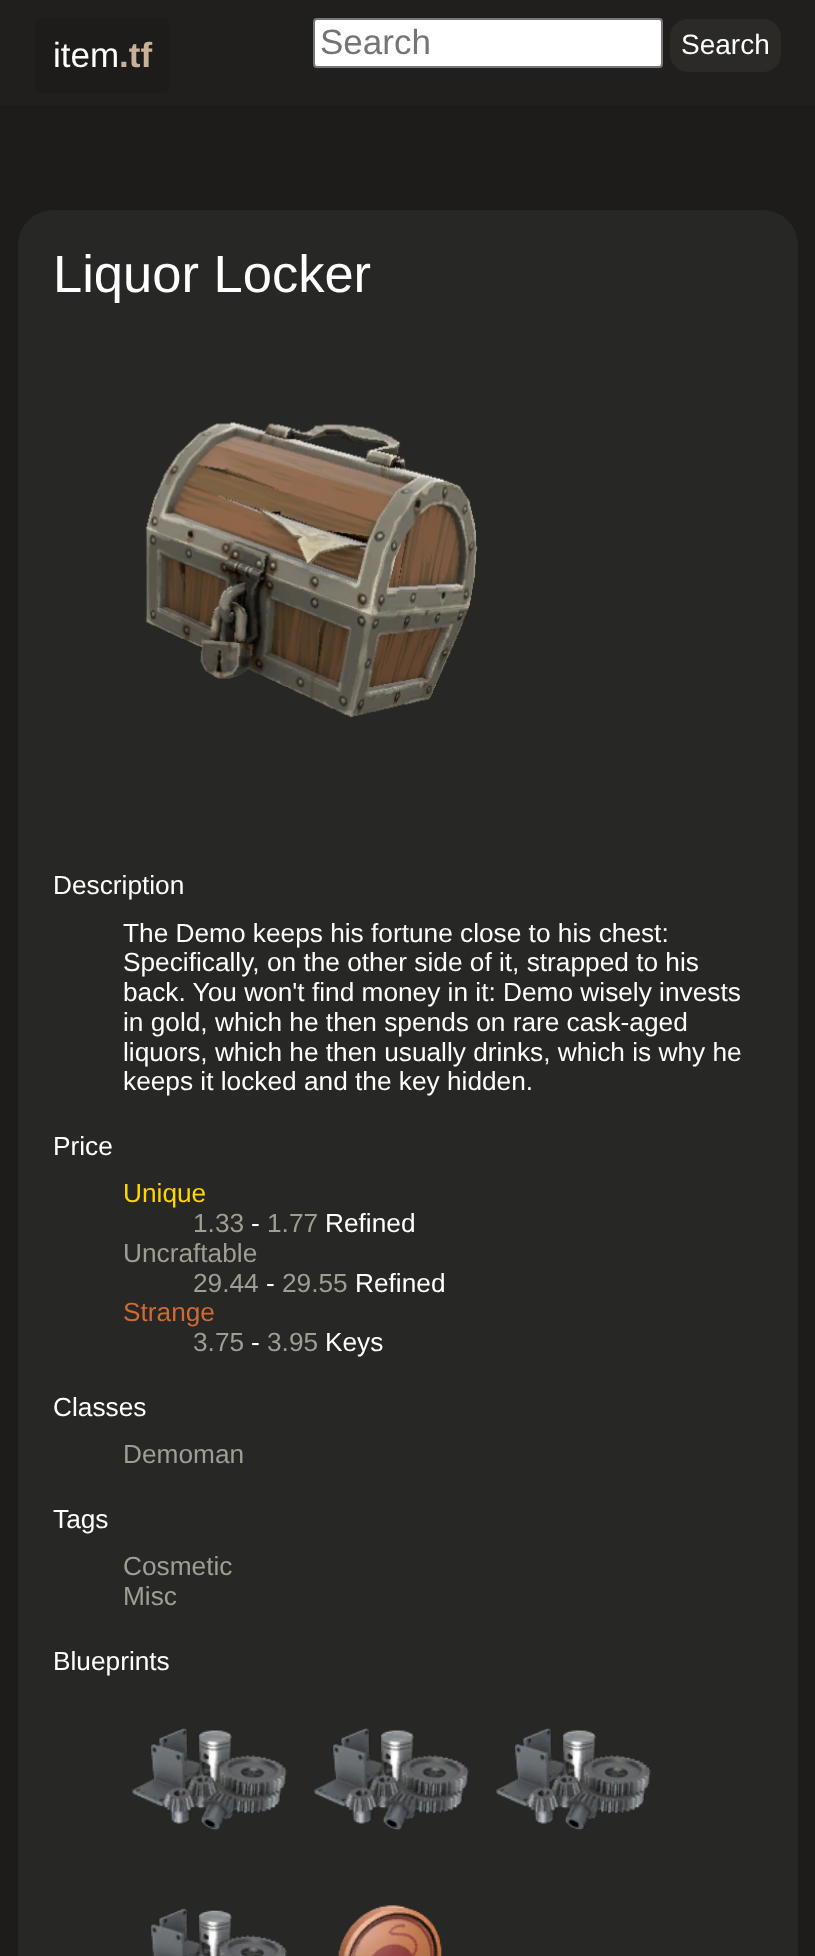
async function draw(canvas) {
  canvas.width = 815;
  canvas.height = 1956;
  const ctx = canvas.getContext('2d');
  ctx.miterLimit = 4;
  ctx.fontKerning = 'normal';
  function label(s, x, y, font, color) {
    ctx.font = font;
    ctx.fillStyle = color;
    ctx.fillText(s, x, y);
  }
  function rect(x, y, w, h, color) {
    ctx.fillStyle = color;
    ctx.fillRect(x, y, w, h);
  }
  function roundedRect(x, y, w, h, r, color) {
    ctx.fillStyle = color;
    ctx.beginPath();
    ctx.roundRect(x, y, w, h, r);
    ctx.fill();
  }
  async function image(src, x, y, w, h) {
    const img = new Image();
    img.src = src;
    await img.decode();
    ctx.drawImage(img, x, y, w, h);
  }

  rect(0, 0, 815, 1956, '#1d1c1b');
  rect(0, 0, 815, 105, '#201f1d');
  roundedRect(35, 18, 135, 75, 9, '#1d1c1a');
  label('item', 53, 67, '35px Liberation Sans', '#fff');
  label('.tf', 119, 67, 'bold 35px Liberation Sans', '#c7b299');
  ctx.fillStyle = '#fff';
  ctx.beginPath();
  ctx.roundRect(314, 19, 348, 48, 3);
  ctx.fill();
  ctx.strokeStyle = '#767676';
  ctx.lineWidth = 2;
  ctx.stroke();
  label('Search', 320, 54, '35px Liberation Sans', '#757575');
  roundedRect(670, 19, 111, 53, 18, '#2b2a27');
  label('Search', 681, 54, '28px Liberation Sans', '#fff');
  roundedRect(18, 210, 780, 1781, 35, '#272725');
  label('Liquor Locker', 53, 292, '52.5px Liberation Sans', '#fff');
  await image('assets/img1.png', 145, 422, 333, 296);
  label('Description', 53, 894, '26.25px Liberation Sans', '#fff');
  label('The Demo keeps his fortune close to his chest:', 123, 942, '26.25px Liberation Sans', '#fff');
  label('Specifically, on the other side of it, strapped to his', 123, 971, '26.25px Liberation Sans', '#fff');
  label('back. You won\'t find money in it: Demo wisely invests', 123, 1001, '26.25px Liberation Sans', '#fff');
  label('in gold, which he then spends on rare cask-aged', 123, 1031, '26.25px Liberation Sans', '#fff');
  label('liquors, which he then usually drinks, which is why he', 123, 1061, '26.25px Liberation Sans', '#fff');
  label('keeps it locked and the key hidden.', 123, 1090, '26.25px Liberation Sans', '#fff');
  label('Price', 53, 1155, '26.25px Liberation Sans', '#fff');
  label('Unique', 123, 1202, '26.25px Liberation Sans', '#ffd700');
  label('1.33', 193, 1232, '26.25px Liberation Sans', '#a09e92');
  label('-', 251, 1232, '26.25px Liberation Sans', '#fff');
  label('1.77', 267, 1232, '26.25px Liberation Sans', '#a09e92');
  label('Refined', 325, 1232, '26.25px Liberation Sans', '#fff');
  label('Uncraftable', 123, 1262, '26.25px Liberation Sans', '#a09e92');
  label('29.44', 193, 1292, '26.25px Liberation Sans', '#a09e92');
  label('-', 266, 1292, '26.25px Liberation Sans', '#fff');
  label('29.55', 282, 1292, '26.25px Liberation Sans', '#a09e92');
  label('Refined', 355, 1292, '26.25px Liberation Sans', '#fff');
  label('Strange', 123, 1321, '26.25px Liberation Sans', '#cf6a32');
  label('3.75', 193, 1351, '26.25px Liberation Sans', '#a09e92');
  label('-', 251, 1351, '26.25px Liberation Sans', '#fff');
  label('3.95', 267, 1351, '26.25px Liberation Sans', '#a09e92');
  label('Keys', 325, 1351, '26.25px Liberation Sans', '#fff');
  label('Classes', 53, 1416, '26.25px Liberation Sans', '#fff');
  label('Demoman', 123, 1463, '26.25px Liberation Sans', '#a09e92');
  label('Tags', 53, 1528, '26.25px Liberation Sans', '#fff');
  label('Cosmetic', 123, 1575, '26.25px Liberation Sans', '#a09e92');
  label('Misc', 123, 1605, '26.25px Liberation Sans', '#a09e92');
  label('Blueprints', 53, 1670, '26.25px Liberation Sans', '#fff');
  await image('assets/img2.png', 132, 1727, 155, 104);
  await image('assets/img2.png', 314, 1727, 155, 104);
  await image('assets/img2.png', 496, 1727, 155, 104);
  await image('assets/img3.png', 150, 1908, 137, 48);
  await image('assets/img4.png', 337, 1905, 105, 51);
}

draw(document.querySelector('canvas'));
